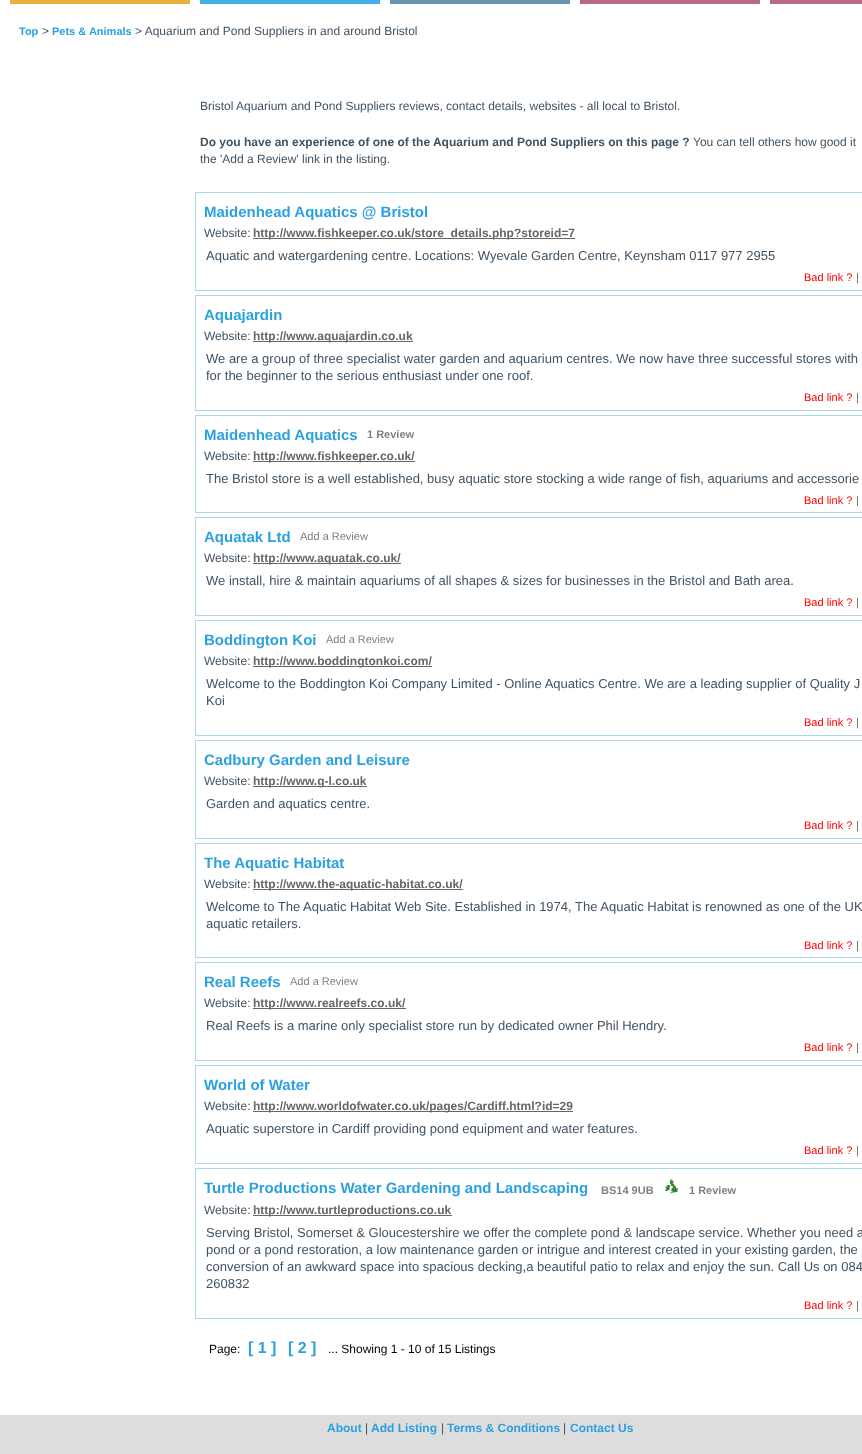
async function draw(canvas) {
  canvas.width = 862;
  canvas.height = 1454;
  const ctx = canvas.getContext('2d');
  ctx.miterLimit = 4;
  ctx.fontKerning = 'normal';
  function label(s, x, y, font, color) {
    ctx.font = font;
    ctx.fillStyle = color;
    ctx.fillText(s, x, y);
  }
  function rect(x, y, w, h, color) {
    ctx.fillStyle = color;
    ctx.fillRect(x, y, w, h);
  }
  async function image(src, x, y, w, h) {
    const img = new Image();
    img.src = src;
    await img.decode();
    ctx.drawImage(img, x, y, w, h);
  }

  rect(0, 0, 862, 1454, '#fff');
  rect(10, 0, 180, 4, '#e6b23c');
  rect(200, 0, 180, 4, '#42b1e9');
  rect(390, 0, 180, 4, '#6894ad');
  rect(580, 0, 180, 4, '#b66a88');
  rect(770, 0, 92, 4, '#b66a88');
  label('Top', 19, 35, 'bold 11px Liberation Sans', '#2ca1de');
  label('>', 42, 35, '12px Liberation Sans', '#405363');
  label('Pets & Animals', 52, 35, 'bold 11px Liberation Sans', '#2ca1de');
  label('> Aquarium and Pond Suppliers in and around Bristol', 135, 35, '12px Liberation Sans', '#405363');
  label('Bristol Aquarium and Pond Suppliers reviews, contact details, websites - all local to Bristol.', 200, 110, '12px Liberation Sans', '#405363');
  label('Do you have an experience of one of the Aquarium and Pond Suppliers on this page ?', 200, 146, 'bold 12px Liberation Sans', '#405363');
  label('You can tell others how good it', 693, 146, '12px Liberation Sans', '#405363');
  label('the \'Add a Review\' link in the listing.', 200, 163, '12px Liberation Sans', '#405363');
  ctx.strokeStyle = '#add8e6';
  ctx.strokeRect(195.5, 192.5, 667, 98);
  label('Maidenhead Aquatics @ Bristol', 204, 217, 'bold 15px Liberation Sans', '#2ca1de');
  label('Website:', 204, 237, '12px Liberation Sans', '#405363');
  rect(253, 238, 322, 1, '#666');
  label('http://www.fishkeeper.co.uk/store_details.php?storeid=7', 253, 237, 'bold 12px Liberation Sans', '#666');
  label('Aquatic and watergardening centre. Locations: Wyevale Garden Centre, Keynsham 0117 977 2955', 206, 260, '13px Liberation Sans', '#405363');
  label('Bad link ?', 804, 281, '11px Liberation Sans', '#f00');
  label('|', 856, 281, '11px Liberation Sans', '#666');
  ctx.strokeRect(195.5, 295.5, 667, 115);
  label('Aquajardin', 204, 320, 'bold 15px Liberation Sans', '#2ca1de');
  label('Website:', 204, 340, '12px Liberation Sans', '#405363');
  rect(253, 341, 160, 1, '#666');
  label('http://www.aquajardin.co.uk', 253, 340, 'bold 12px Liberation Sans', '#666');
  label('We are a group of three specialist water garden and aquarium centres. We now have three successful stores with', 206, 363, '13px Liberation Sans', '#405363');
  label('for the beginner to the serious enthusiast under one roof.', 206, 380, '13px Liberation Sans', '#405363');
  label('Bad link ?', 804, 401, '11px Liberation Sans', '#f00');
  label('|', 856, 401, '11px Liberation Sans', '#666');
  ctx.strokeRect(195.5, 415.5, 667, 97);
  label('Maidenhead Aquatics', 204, 440, 'bold 15px Liberation Sans', '#2ca1de');
  label('1 Review', 367, 438, 'bold 11px Liberation Sans', '#808080');
  label('Website:', 204, 460, '12px Liberation Sans', '#405363');
  rect(253, 461, 162, 1, '#666');
  label('http://www.fishkeeper.co.uk/', 253, 460, 'bold 12px Liberation Sans', '#666');
  label('The Bristol store is a well established, busy aquatic store stocking a wide range of fish, aquariums and accessorie', 206, 483, '13px Liberation Sans', '#405363');
  label('Bad link ?', 804, 504, '11px Liberation Sans', '#f00');
  label('|', 856, 504, '11px Liberation Sans', '#666');
  ctx.strokeRect(195.5, 517.5, 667, 98);
  label('Aquatak Ltd', 204, 542, 'bold 15px Liberation Sans', '#2ca1de');
  label('Add a Review', 300, 540, '11px Liberation Sans', '#808080');
  label('Website:', 204, 562, '12px Liberation Sans', '#405363');
  rect(253, 563, 148, 1, '#666');
  label('http://www.aquatak.co.uk/', 253, 562, 'bold 12px Liberation Sans', '#666');
  label('We install, hire & maintain aquariums of all shapes & sizes for businesses in the Bristol and Bath area.', 206, 585, '13px Liberation Sans', '#405363');
  label('Bad link ?', 804, 606, '11px Liberation Sans', '#f00');
  label('|', 856, 606, '11px Liberation Sans', '#666');
  ctx.strokeRect(195.5, 620.5, 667, 115);
  label('Boddington Koi', 204, 645, 'bold 15px Liberation Sans', '#2ca1de');
  label('Add a Review', 326, 643, '11px Liberation Sans', '#808080');
  label('Website:', 204, 665, '12px Liberation Sans', '#405363');
  rect(253, 666, 179, 1, '#666');
  label('http://www.boddingtonkoi.com/', 253, 665, 'bold 12px Liberation Sans', '#666');
  label('Welcome to the Boddington Koi Company Limited - Online Aquatics Centre. We are a leading supplier of Quality J', 206, 688, '13px Liberation Sans', '#405363');
  label('Koi', 206, 705, '13px Liberation Sans', '#405363');
  label('Bad link ?', 804, 726, '11px Liberation Sans', '#f00');
  label('|', 856, 726, '11px Liberation Sans', '#666');
  ctx.strokeRect(195.5, 740.5, 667, 98);
  label('Cadbury Garden and Leisure', 204, 765, 'bold 15px Liberation Sans', '#2ca1de');
  label('Website:', 204, 785, '12px Liberation Sans', '#405363');
  rect(253, 786, 114, 1, '#666');
  label('http://www.g-l.co.uk', 253, 785, 'bold 12px Liberation Sans', '#666');
  label('Garden and aquatics centre.', 206, 808, '13px Liberation Sans', '#405363');
  label('Bad link ?', 804, 829, '11px Liberation Sans', '#f00');
  label('|', 856, 829, '11px Liberation Sans', '#666');
  ctx.strokeRect(195.5, 843.5, 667, 114);
  label('The Aquatic Habitat', 204, 868, 'bold 15px Liberation Sans', '#2ca1de');
  label('Website:', 204, 888, '12px Liberation Sans', '#405363');
  rect(253, 889, 210, 1, '#666');
  label('http://www.the-aquatic-habitat.co.uk/', 253, 888, 'bold 12px Liberation Sans', '#666');
  label('Welcome to The Aquatic Habitat Web Site. Established in 1974, The Aquatic Habitat is renowned as one of the UK', 206, 911, '13px Liberation Sans', '#405363');
  label('aquatic retailers.', 206, 928, '13px Liberation Sans', '#405363');
  label('Bad link ?', 804, 949, '11px Liberation Sans', '#f00');
  label('|', 856, 949, '11px Liberation Sans', '#666');
  ctx.strokeRect(195.5, 962.5, 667, 98);
  label('Real Reefs', 204, 987, 'bold 15px Liberation Sans', '#2ca1de');
  label('Add a Review', 290, 985, '11px Liberation Sans', '#808080');
  label('Website:', 204, 1007, '12px Liberation Sans', '#405363');
  rect(253, 1008, 153, 1, '#666');
  label('http://www.realreefs.co.uk/', 253, 1007, 'bold 12px Liberation Sans', '#666');
  label('Real Reefs is a marine only specialist store run by dedicated owner Phil Hendry.', 206, 1030, '13px Liberation Sans', '#405363');
  label('Bad link ?', 804, 1051, '11px Liberation Sans', '#f00');
  label('|', 856, 1051, '11px Liberation Sans', '#666');
  ctx.strokeRect(195.5, 1065.5, 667, 98);
  label('World of Water', 204, 1090, 'bold 15px Liberation Sans', '#2ca1de');
  label('Website:', 204, 1110, '12px Liberation Sans', '#405363');
  rect(253, 1111, 320, 1, '#666');
  label('http://www.worldofwater.co.uk/pages/Cardiff.html?id=29', 253, 1110, 'bold 12px Liberation Sans', '#666');
  label('Aquatic superstore in Cardiff providing pond equipment and water features.', 206, 1133, '13px Liberation Sans', '#405363');
  label('Bad link ?', 804, 1154, '11px Liberation Sans', '#f00');
  label('|', 856, 1154, '11px Liberation Sans', '#666');
  ctx.strokeRect(195.5, 1168.5, 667, 150);
  label('Turtle Productions Water Gardening and Landscaping', 204, 1193, 'bold 15px Liberation Sans', '#2ca1de');
  label('BS14 9UB', 601, 1194, 'bold 11px Liberation Sans', '#808080');
  await image('assets/img1.png', 665, 1179, 13, 15);
  label('1 Review', 689, 1194, 'bold 11px Liberation Sans', '#808080');
  label('Website:', 204, 1214, '12px Liberation Sans', '#405363');
  rect(253, 1215, 199, 1, '#666');
  label('http://www.turtleproductions.co.uk', 253, 1214, 'bold 12px Liberation Sans', '#666');
  label('Serving Bristol, Somerset & Gloucestershire we offer the complete pond & landscape service. Whether you need a', 206, 1237, '13px Liberation Sans', '#405363');
  label('pond or a pond restoration, a low maintenance garden or intrigue and interest created in your existing garden, the', 206, 1254, '13px Liberation Sans', '#405363');
  label('conversion of an awkward space into spacious decking,a beautiful patio to relax and enjoy the sun. Call Us on 084', 206, 1271, '13px Liberation Sans', '#405363');
  label('260832', 206, 1288, '13px Liberation Sans', '#405363');
  label('Bad link ?', 804, 1309, '11px Liberation Sans', '#f00');
  label('|', 856, 1309, '11px Liberation Sans', '#666');
  label('Page:', 209, 1353, '12px Liberation Sans', '#000');
  label('[ 1 ]', 248, 1353, 'bold 16px Liberation Sans', '#2ca1de');
  label('[ 2 ]', 288, 1353, 'bold 16px Liberation Sans', '#2ca1de');
  label('... Showing 1 - 10 of 15 Listings', 328, 1353, '12px Liberation Sans', '#000');
  rect(0, 1415, 862, 39, '#ddd');
  label('About', 327, 1432, 'bold 12px Liberation Sans', '#2ca1de');
  label('|', 365, 1432, '12px Liberation Sans', '#405363');
  label('Add Listing', 371, 1432, 'bold 12px Liberation Sans', '#2ca1de');
  label('|', 441, 1432, '12px Liberation Sans', '#405363');
  label('Terms & Conditions', 447, 1432, 'bold 12px Liberation Sans', '#2ca1de');
  label('|', 563, 1432, '12px Liberation Sans', '#405363');
  label('Contact Us', 570, 1432, 'bold 12px Liberation Sans', '#2ca1de');
}

draw(document.querySelector('canvas'));
